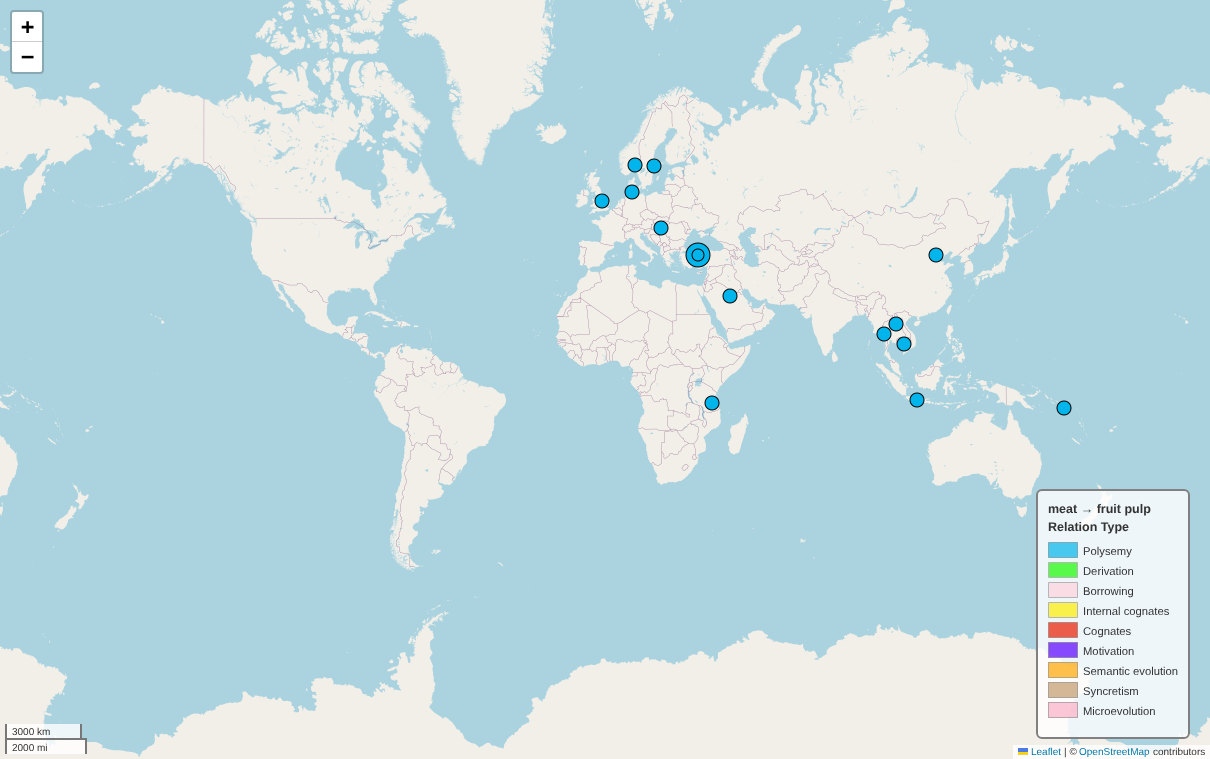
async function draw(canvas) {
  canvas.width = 1210;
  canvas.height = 759;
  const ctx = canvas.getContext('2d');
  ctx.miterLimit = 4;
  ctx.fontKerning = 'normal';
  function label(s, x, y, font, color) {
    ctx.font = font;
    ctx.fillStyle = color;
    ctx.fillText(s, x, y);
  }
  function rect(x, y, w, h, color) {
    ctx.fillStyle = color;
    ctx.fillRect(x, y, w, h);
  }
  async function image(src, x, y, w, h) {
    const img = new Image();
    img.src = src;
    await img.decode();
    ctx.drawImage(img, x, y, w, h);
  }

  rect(0, 0, 1210, 759, '#fff');
  await image('assets/img1.png', 0, 0, 93, 123);
  await image('assets/img2.png', 93, 0, 256, 123);
  await image('assets/img3.png', 349, 0, 256, 123);
  await image('assets/img4.png', 605, 0, 256, 123);
  await image('assets/img5.png', 861, 0, 256, 123);
  await image('assets/img6.png', 1117, 0, 93, 123);
  await image('assets/img7.png', 0, 123, 93, 256);
  await image('assets/img8.png', 93, 123, 256, 256);
  await image('assets/img9.png', 349, 123, 256, 256);
  await image('assets/img10.png', 605, 123, 256, 256);
  await image('assets/img11.png', 861, 123, 256, 256);
  await image('assets/img12.png', 1117, 123, 93, 256);
  await image('assets/img13.png', 0, 379, 93, 256);
  rect(93, 379, 256, 256, '#aad3df');
  await image('assets/img14.png', 349, 379, 256, 256);
  await image('assets/img15.png', 605, 379, 256, 256);
  await image('assets/img16.png', 861, 379, 256, 256);
  rect(1117, 379, 93, 256, '#aad3df');
  await image('assets/img17.png', 0, 635, 93, 124);
  await image('assets/img18.png', 93, 635, 256, 124);
  await image('assets/img19.png', 349, 635, 256, 124);
  await image('assets/img20.png', 605, 635, 256, 124);
  await image('assets/img21.png', 861, 635, 256, 124);
  await image('assets/img22.png', 1117, 635, 93, 124);
  await image('assets/img23.png', 594, 157, 478, 259);
  ctx.beginPath();
  ctx.roundRect(11, 11, 32, 62, 3);
  ctx.strokeStyle = '#00000033';
  ctx.lineWidth = 2;
  ctx.stroke();
  ctx.fillStyle = '#fff';
  ctx.beginPath();
  ctx.roundRect(12, 12, 30, 30, [2, 2, 0, 0]);
  ctx.fill();
  rect(12, 41, 30, 1, '#ccc');
  label('+', 21, 34, 'bold 22px DejaVu Sans Mono', '#000');
  ctx.fillStyle = '#fff';
  ctx.beginPath();
  ctx.roundRect(12, 42, 30, 30, [0, 0, 2, 2]);
  ctx.fill();
  label('−', 21, 64, 'bold 22px DejaVu Sans Mono', '#000');
  rect(7, 724, 73, 14, '#ffffffcc');
  rect(80, 724, 2, 16, '#777');
  rect(5, 724, 2, 16, '#777');
  label('3000 km', 12, 735, '10px Liberation Sans', '#333');
  rect(7, 740, 78, 14, '#ffffffcc');
  rect(5, 738, 82, 2, '#777');
  rect(85, 738, 2, 16, '#777');
  rect(5, 738, 2, 16, '#777');
  label('2000 mi', 12, 751, '10px Liberation Sans', '#333');
  rect(1013, 745, 197, 14, '#ffffffcc');
  await image('assets/img24.png', 1018, 748, 10, 7);
  label('Leaflet', 1031, 755, '10px Liberation Sans', '#0078a8');
  label('| ©', 1064, 755, '10px Liberation Sans', '#333');
  label('OpenStreetMap', 1079, 755, '10px Liberation Sans', '#0078a8');
  label('contributors', 1153, 755, '10px Liberation Sans', '#333');
  ctx.fillStyle = '#ffffffcc';
  ctx.beginPath();
  ctx.roundRect(1037, 490, 152, 248, 5);
  ctx.fill();
  ctx.strokeStyle = '#808080';
  ctx.stroke();
  label('meat → fruit pulp', 1048, 513, 'bold 12.5px Liberation Sans', '#333');
  label('Relation Type', 1048, 531, 'bold 12.5px Liberation Sans', '#333');
  ctx.fillStyle = '#00b5ebb3';
  ctx.beginPath();
  ctx.rect(1048.5, 542.5, 29, 15);
  ctx.fill();
  ctx.strokeStyle = '#81a7b3';
  ctx.lineWidth = 1;
  ctx.stroke();
  label('Polysemy', 1083, 555, '11.25px Liberation Sans', '#333');
  ctx.fillStyle = '#58f94b';
  ctx.beginPath();
  ctx.rect(1048.5, 562.5, 29, 15);
  ctx.fill();
  ctx.strokeStyle = '#b3b5b6';
  ctx.stroke();
  label('Derivation', 1083, 575, '11.25px Liberation Sans', '#333');
  ctx.fillStyle = '#fadce5';
  ctx.beginPath();
  ctx.rect(1048.5, 582.5, 29, 15);
  ctx.fill();
  ctx.stroke();
  label('Borrowing', 1083, 595, '11.25px Liberation Sans', '#333');
  ctx.fillStyle = '#faf04b';
  ctx.beginPath();
  ctx.rect(1048.5, 602.5, 29, 15);
  ctx.fill();
  ctx.stroke();
  label('Internal cognates', 1083, 615, '11.25px Liberation Sans', '#333');
  ctx.fillStyle = '#eb1b00b3';
  ctx.beginPath();
  ctx.rect(1048.5, 622.5, 29, 15);
  ctx.fill();
  ctx.strokeStyle = '#b28781';
  ctx.stroke();
  label('Cognates', 1083, 635, '11.25px Liberation Sans', '#333');
  rect(1048, 642, 30, 16, '#5b00ffb3');
  ctx.strokeStyle = '#999999b3';
  ctx.strokeRect(1048.5, 642.5, 29, 15);
  label('Motivation', 1083, 655, '11.25px Liberation Sans', '#333');
  rect(1048, 662, 30, 16, '#ffa500b3');
  ctx.strokeRect(1048.5, 662.5, 29, 15);
  label('Semantic evolution', 1083, 675, '11.25px Liberation Sans', '#333');
  rect(1048, 682, 30, 16, '#c19a6bb3');
  ctx.strokeRect(1048.5, 682.5, 29, 15);
  label('Syncretism', 1083, 695, '11.25px Liberation Sans', '#333');
  rect(1048, 702, 30, 16, '#faafc4b3');
  ctx.strokeRect(1048.5, 702.5, 29, 15);
  label('Microevolution', 1083, 715, '11.25px Liberation Sans', '#333');
}

draw(document.querySelector('canvas'));
